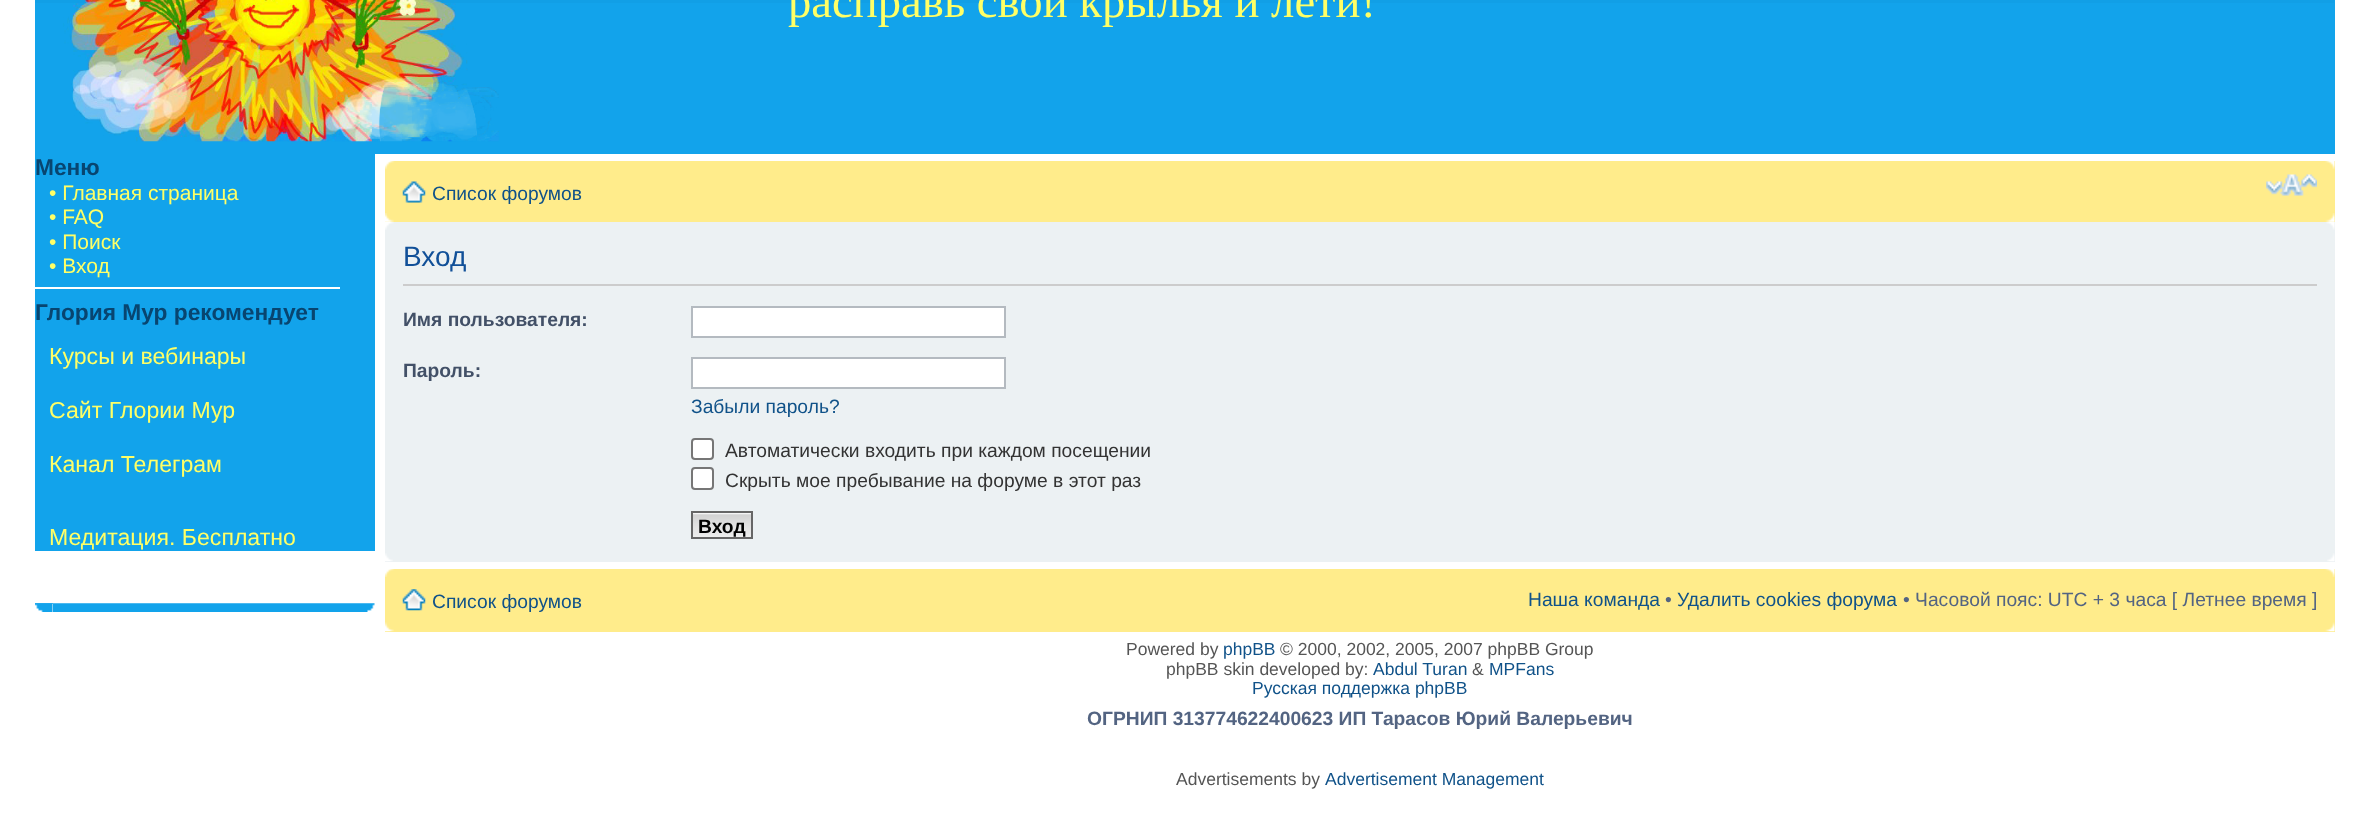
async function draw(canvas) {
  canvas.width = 2369;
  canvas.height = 836;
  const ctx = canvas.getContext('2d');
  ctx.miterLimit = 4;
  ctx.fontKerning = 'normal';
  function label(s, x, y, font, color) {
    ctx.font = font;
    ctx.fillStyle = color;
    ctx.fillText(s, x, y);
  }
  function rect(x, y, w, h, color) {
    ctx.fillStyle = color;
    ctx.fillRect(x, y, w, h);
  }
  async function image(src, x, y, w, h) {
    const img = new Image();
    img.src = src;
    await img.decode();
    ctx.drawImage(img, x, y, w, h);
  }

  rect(0, 0, 2369, 836, '#fff');
  rect(35, 0, 2300, 154, '#12a3eb');
  rect(35, 0, 2299, 3, '#119fe6');
  await image('assets/img1.png', 63, 0, 436, 142);
  label('расправь свои крылья и лети!', 788, 17, '46.7px Liberation Serif', '#ff6');
  rect(35, 154, 340, 397, '#12a3eb');
  label('Меню', 35, 175, 'bold 22.75px Liberation Sans', '#084570');
  label('• Главная страница', 49, 200, '21px Liberation Sans', '#ff6');
  label('• FAQ', 49, 224, '21px Liberation Sans', '#ff6');
  label('• Поиск', 49, 249, '21px Liberation Sans', '#ff6');
  label('• Вход', 49, 273, '21px Liberation Sans', '#ff6');
  rect(35, 287, 305, 2, '#fff');
  label('Глория Мур рекомендует', 35, 320, 'bold 22.75px Liberation Sans', '#084570');
  label('Курсы и вебинары', 49, 364, '23.1px Liberation Sans', '#ff6');
  label('Сайт Глории Мур', 49, 418, '23.1px Liberation Sans', '#ff6');
  label('Канал Телеграм', 49, 472, '23.1px Liberation Sans', '#ff6');
  label('Медитация. Бесплатно', 49, 545, '23.1px Liberation Sans', '#ff6');
  await image('assets/img2.png', 35, 603, 340, 9);
  rect(35, 604, 18, 8, '#fff');
  await image('assets/img3.png', 35, 603, 18, 9);
  rect(385, 161, 1950, 61, '#ffec8b');
  await image('assets/img4.png', 385, 161, 10, 9);
  await image('assets/img5.png', 2325, 161, 10, 9);
  await image('assets/img6.png', 402, 181, 24, 22);
  label('Список форумов', 432, 200, '19.25px Liberation Sans', '#105289');
  await image('assets/img7.png', 2266, 174, 51, 22);
  await image('assets/img8.png', 385, 213, 9, 9);
  await image('assets/img9.png', 2325, 213, 10, 9);
  rect(385, 222, 1950, 340, '#ecf1f3');
  await image('assets/img10.png', 385, 221, 9, 9);
  await image('assets/img11.png', 2326, 221, 9, 9);
  rect(403, 284, 1914, 2, '#ccc');
  label('Вход', 403, 266, '28px Liberation Sans', '#115098');
  label('Имя пользователя:', 403, 326, 'bold 19.25px Liberation Sans', '#425067');
  ctx.fillStyle = '#fff';
  ctx.beginPath();
  ctx.rect(692, 307, 313, 30);
  ctx.fill();
  ctx.strokeStyle = '#b4bac0';
  ctx.lineWidth = 2;
  ctx.stroke();
  label('Пароль:', 403, 377, 'bold 19.25px Liberation Sans', '#425067');
  ctx.fillStyle = '#fff';
  ctx.beginPath();
  ctx.rect(692, 358, 313, 30);
  ctx.fill();
  ctx.stroke();
  label('Забыли пароль?', 691, 413, '19.25px Liberation Sans', '#105289');
  ctx.fillStyle = '#fff';
  ctx.beginPath();
  ctx.roundRect(692, 439, 21, 20, 3);
  ctx.fill();
  ctx.strokeStyle = '#767676';
  ctx.stroke();
  label('Автоматически входить при каждом посещении', 725, 457, '19.25px Liberation Sans', '#333');
  ctx.fillStyle = '#fff';
  ctx.beginPath();
  ctx.roundRect(692, 468, 21, 21, 3);
  ctx.fill();
  ctx.stroke();
  label('Скрыть мое пребывание на форуме в этот раз', 725, 487, '19.25px Liberation Sans', '#333');
  await image('assets/img12.png', 693, 513, 58, 24);
  ctx.strokeStyle = '#666';
  ctx.strokeRect(692, 512, 60, 26);
  label('Вход', 698, 533, 'bold 19.25px Liberation Sans', '#000');
  await image('assets/img13.png', 385, 553, 8, 9);
  await image('assets/img14.png', 2327, 553, 8, 9);
  rect(385, 569, 1950, 63, '#ffec8b');
  await image('assets/img15.png', 385, 569, 10, 8);
  await image('assets/img16.png', 2325, 569, 10, 8);
  await image('assets/img17.png', 402, 589, 24, 22);
  label('Список форумов', 432, 608, '19.25px Liberation Sans', '#105289');
  label('Наша команда', 1528, 606, '19.25px Liberation Sans', '#105289');
  label('•', 1665, 606, '19.25px Liberation Sans', '#536482');
  label('Удалить cookies форума', 1677, 606, '19.25px Liberation Sans', '#105289');
  label('• Часовой пояс: UTC + 3 часа [ Летнее время ]', 1903, 606, '19.25px Liberation Sans', '#536482');
  await image('assets/img18.png', 385, 622, 9, 10);
  await image('assets/img19.png', 2325, 622, 10, 10);
  label('Powered by', 1126, 655, '17.5px Liberation Sans', '#555');
  label('phpBB', 1223, 655, '17.5px Liberation Sans', '#105289');
  label('© 2000, 2002, 2005, 2007 phpBB Group', 1280, 655, '17.5px Liberation Sans', '#555');
  label('phpBB skin developed by:', 1166, 675, '17.5px Liberation Sans', '#555');
  label('Abdul Turan', 1373, 675, '17.5px Liberation Sans', '#105289');
  label('&', 1472, 675, '17.5px Liberation Sans', '#555');
  label('MPFans', 1489, 675, '17.5px Liberation Sans', '#105289');
  label('Русская поддержка phpBB', 1252, 694, '17.5px Liberation Sans', '#105289');
  label('ОГРНИП 313774622400623 ИП Тарасов Юрий Валерьевич', 1087, 725, 'bold 19.25px Liberation Sans', '#536482');
  label('Advertisements by', 1176, 785, '17.5px Liberation Sans', '#555');
  label('Advertisement Management', 1325, 785, '17.5px Liberation Sans', '#105289');
}

draw(document.querySelector('canvas'));
